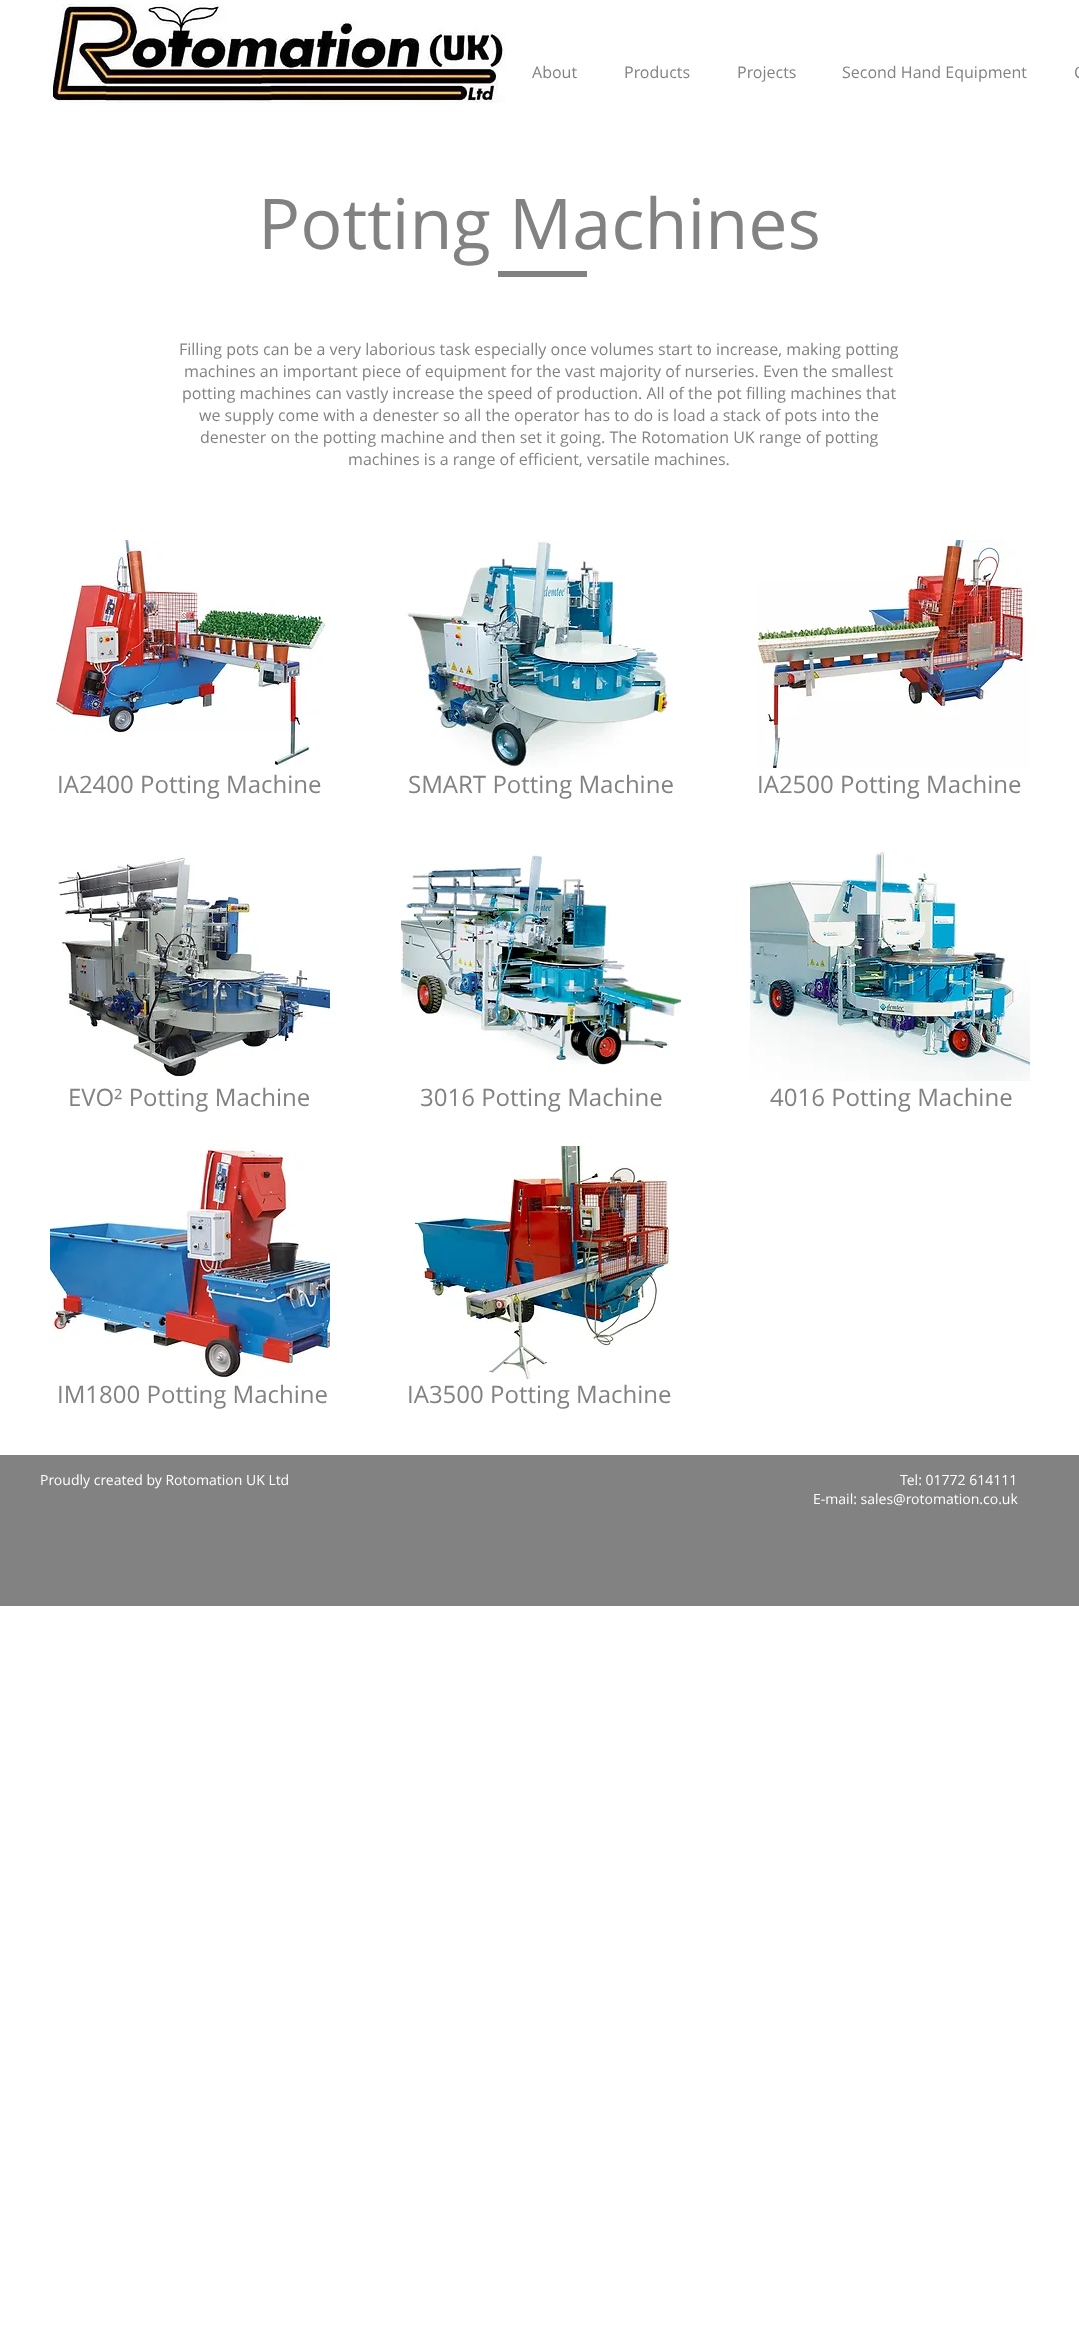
async function draw(canvas) {
  canvas.width = 1079;
  canvas.height = 2331;
  const ctx = canvas.getContext('2d');
  ctx.miterLimit = 4;
  ctx.fontKerning = 'normal';
  function label(s, x, y, font, color) {
    ctx.font = font;
    ctx.fillStyle = color;
    ctx.fillText(s, x, y);
  }
  function rect(x, y, w, h, color) {
    ctx.fillStyle = color;
    ctx.fillRect(x, y, w, h);
  }
  async function image(src, x, y, w, h) {
    const img = new Image();
    img.src = src;
    await img.decode();
    ctx.drawImage(img, x, y, w, h);
  }

  rect(0, 0, 1079, 2331, '#fff');
  await image('assets/img1.png', 50, 4, 456, 99);
  label('About', 532, 78, '16px Open Sans', '#828282');
  label('Products', 624, 78, '16px Open Sans', '#828282');
  label('Projects', 737, 78, '16px Open Sans', '#828282');
  label('Second Hand Equipment', 842, 78, '16px Open Sans', '#828282');
  label('C', 1074, 78, '16px Open Sans', '#828282');
  label('Potting Machines', 258, 249, '70px Open Sans', '#828282');
  rect(498, 271, 89, 6, '#828282');
  label('Filling pots can be a very laborious task especially once volumes start to increase, making potting', 179, 355, '16px Open Sans', '#828282');
  label('machines an important piece of equipment for the vast majority of nurseries. Even the smallest', 184, 377, '16px Open Sans', '#828282');
  label('potting machines can vastly increase the speed of production. All of the pot filling machines that', 182, 399, '16px Open Sans', '#828282');
  label('we supply come with a denester so all the operator has to do is load a stack of pots into the', 199, 421, '16px Open Sans', '#828282');
  label('denester on the potting machine and then set it going. The Rotomation UK range of potting', 200, 443, '16px Open Sans', '#828282');
  label('machines is a range of efficient, versatile machines.', 348, 465, '16px Open Sans', '#828282');
  await image('assets/img2.png', 50, 540, 276, 227);
  await image('assets/img3.png', 406, 540, 267, 228);
  await image('assets/img4.png', 757, 540, 273, 228);
  label('IA2400 Potting Machine', 57, 793, '24px Open Sans', '#828282');
  label('SMART Potting Machine', 408, 793, '24px Open Sans', '#828282');
  label('IA2500 Potting Machine', 757, 793, '24px Open Sans', '#828282');
  await image('assets/img5.png', 58, 856, 272, 221);
  await image('assets/img6.png', 401, 855, 280, 213);
  await image('assets/img7.png', 750, 852, 280, 229);
  label('EVO² Potting Machine', 68, 1106, '24px Open Sans', '#828282');
  label('3016 Potting Machine', 420, 1106, '24px Open Sans', '#828282');
  label('4016 Potting Machine', 770, 1106, '24px Open Sans', '#828282');
  await image('assets/img8.png', 50, 1147, 280, 231);
  await image('assets/img9.png', 413, 1146, 258, 233);
  label('IM1800 Potting Machine', 57, 1403, '24px Open Sans', '#828282');
  label('IA3500 Potting Machine', 407, 1403, '24px Open Sans', '#828282');
  rect(0, 1455, 1079, 151, '#828282');
  label('Proudly created by Rotomation UK Ltd', 40, 1485, '14px Open Sans', '#fff');
  label('Tel: 01772 614111', 900, 1485, '14px Open Sans', '#fff');
  label('E-mail: sales@rotomation.co.uk', 813, 1504, '14px Open Sans', '#fff');
}

draw(document.querySelector('canvas'));
